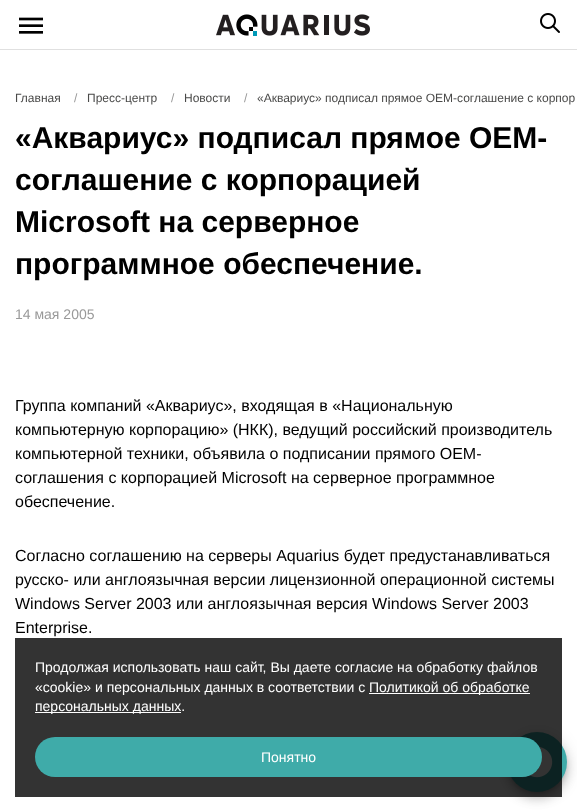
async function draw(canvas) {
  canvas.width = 577;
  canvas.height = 812;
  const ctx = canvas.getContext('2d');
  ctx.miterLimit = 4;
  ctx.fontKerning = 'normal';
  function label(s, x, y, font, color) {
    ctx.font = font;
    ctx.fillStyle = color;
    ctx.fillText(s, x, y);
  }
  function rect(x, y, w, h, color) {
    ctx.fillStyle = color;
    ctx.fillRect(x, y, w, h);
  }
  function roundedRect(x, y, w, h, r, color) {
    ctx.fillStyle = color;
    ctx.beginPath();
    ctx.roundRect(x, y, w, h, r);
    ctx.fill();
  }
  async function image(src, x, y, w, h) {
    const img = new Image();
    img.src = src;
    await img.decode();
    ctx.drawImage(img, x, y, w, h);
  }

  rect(0, 0, 577, 812, '#fff');
  rect(0, 49, 577, 1, '#e0e0e0');
  await image('assets/img1.png', 19, 17, 24, 17);
  await image('assets/img2.png', 216, 14, 154, 22);
  await image('assets/img3.png', 540, 13, 20, 20);
  label('Главная', 15, 102, '12px Liberation Sans', '#4a4a49');
  label('/', 74, 102, '12px Liberation Sans', '#999');
  label('Пресс-центр', 87, 102, '12px Liberation Sans', '#4a4a49');
  label('/', 171, 102, '12px Liberation Sans', '#999');
  label('Новости', 184, 102, '12px Liberation Sans', '#4a4a49');
  label('/', 244, 102, '12px Liberation Sans', '#999');
  label('«Аквариус» подписал прямое OEM-соглашение с корпор', 257, 102, '12px Liberation Sans', '#4a4a49');
  label('«Аквариус» подписал прямое OEM-', 15, 148, 'bold 30px Liberation Sans', '#000');
  label('соглашение с корпорацией', 15, 190, 'bold 30px Liberation Sans', '#000');
  label('Microsoft на серверное', 15, 232, 'bold 30px Liberation Sans', '#000');
  label('программное обеспечение.', 15, 274, 'bold 30px Liberation Sans', '#000');
  label('14 мая 2005', 15, 319, '14px Liberation Sans', '#999');
  label('Группа компаний «Аквариус», входящая в «Национальную', 15, 411, '16px Liberation Sans', '#000');
  label('компьютерную корпорацию» (НКК), ведущий российский производитель', 15, 435, '16px Liberation Sans', '#000');
  label('компьютерной техники, объявила о подписании прямого OEM-', 15, 459, '16px Liberation Sans', '#000');
  label('соглашения с корпорацией Microsoft на серверное программное', 15, 483, '16px Liberation Sans', '#000');
  label('обеспечение.', 15, 507, '16px Liberation Sans', '#000');
  label('Согласно соглашению на серверы Aquarius будет предустанавливаться', 15, 561, '16px Liberation Sans', '#000');
  label('русско- или англоязычная версии лицензионной операционной системы', 15, 585, '16px Liberation Sans', '#000');
  label('Windows Server 2003 или англоязычная версия Windows Server 2003', 15, 609, '16px Liberation Sans', '#000');
  label('Enterprise.', 15, 633, '16px Liberation Sans', '#000');
  ctx.fillStyle = '#0000001f';
  ctx.filter = 'blur(8px)';
  ctx.beginPath();
  ctx.roundRect(506, 733, 62, 62, 31);
  ctx.fill();
  ctx.filter = 'none';
  ctx.fillStyle = '#00000024';
  ctx.filter = 'blur(5px)';
  ctx.beginPath();
  ctx.roundRect(506, 738, 62, 62, 31);
  ctx.fill();
  ctx.filter = 'none';
  ctx.fillStyle = '#00000033';
  ctx.filter = 'blur(2.5px)';
  ctx.beginPath();
  ctx.roundRect(509, 738, 56, 56, 28);
  ctx.fill();
  ctx.filter = 'none';
  ctx.fillStyle = '#3faba9';
  ctx.beginPath();
  ctx.arc(537, 762, 30, 0, 2 * Math.PI);
  ctx.fill();
  await image('assets/img4.png', 522, 746, 31, 32);
  rect(15, 638, 547, 159, '#000000cc');
  label('Продолжая использовать наш сайт, Вы даете согласие на обработку файлов', 35, 672, '14px Liberation Sans', '#fff');
  label('«cookie» и персональных данных в соответствии с', 35, 692, '14px Liberation Sans', '#fff');
  rect(369, 693, 161, 1, '#fff');
  label('Политикой об обработке', 369, 692, '14px Liberation Sans', '#fff');
  rect(35, 712, 146, 1, '#fff');
  label('персональных данных.', 35, 711, '14px Liberation Sans', '#fff');
  roundedRect(35, 737, 507, 40, 20, '#3faba9');
  label('Понятно', 261, 762, '14px Liberation Sans', '#fff');
}

draw(document.querySelector('canvas'));
